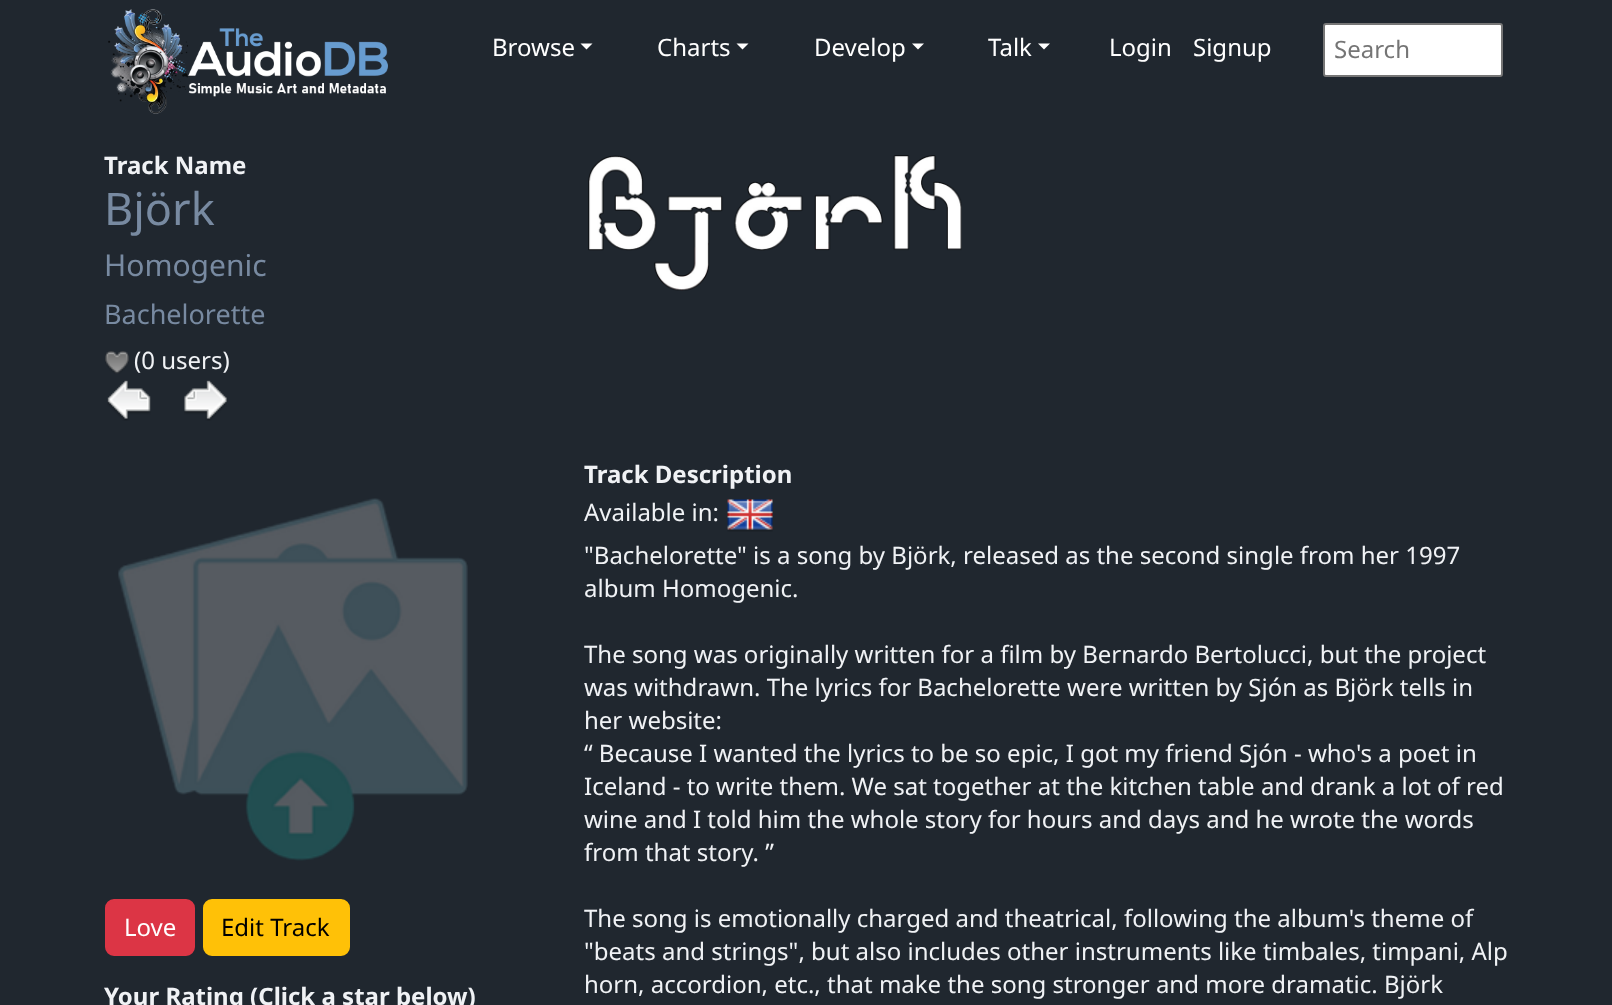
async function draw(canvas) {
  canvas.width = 1612;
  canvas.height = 1005;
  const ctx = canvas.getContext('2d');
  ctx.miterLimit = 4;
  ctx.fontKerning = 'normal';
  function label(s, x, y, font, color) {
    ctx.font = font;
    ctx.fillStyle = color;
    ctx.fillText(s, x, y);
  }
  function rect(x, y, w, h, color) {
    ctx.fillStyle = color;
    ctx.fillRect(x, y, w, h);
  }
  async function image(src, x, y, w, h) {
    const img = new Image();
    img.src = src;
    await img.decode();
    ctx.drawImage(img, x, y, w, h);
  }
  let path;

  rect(0, 0, 1612, 1005, '#20272f');
  await image('assets/img1.png', 108, 9, 280, 105);
  label('Browse', 492, 56, '24px Noto Sans', '#fff');
  path = new Path2D('M580.5 43.5H592.5L586.5 49.5Z');
  ctx.fill(path);
  label('Charts', 657, 56, '24px Noto Sans', '#fff');
  path = new Path2D('M736.5 43.5H748.5L742.5 49.5Z');
  ctx.fill(path);
  label('Develop', 814, 56, '24px Noto Sans', '#fff');
  path = new Path2D('M912 43.5H924L918 49.5Z');
  ctx.fill(path);
  label('Talk', 988, 56, '24px Noto Sans', '#fff');
  path = new Path2D('M1038 43.5H1050L1044 49.5Z');
  ctx.fill(path);
  label('Login', 1109, 56, '24px Noto Sans', '#fff');
  label('Signup', 1193, 56, '24px Noto Sans', '#fff');
  ctx.beginPath();
  ctx.roundRect(1324, 24, 178, 52, 2);
  ctx.fill();
  ctx.strokeStyle = '#767676';
  ctx.lineWidth = 2;
  ctx.stroke();
  label('Search', 1334, 58, '24px Noto Sans', '#757575');
  label('Track Name', 104, 174, 'bold 24px Noto Sans', '#f0f2f5');
  label('Björk', 104, 225, '45px Noto Sans', '#788aa1');
  label('Homogenic', 104, 276, '30px Noto Sans', '#788aa1');
  label('Bachelorette', 104, 324, '27px Noto Sans', '#788aa1');
  await image('assets/img2.png', 105, 351, 24, 23);
  label('(0 users)', 134, 369, '24px Noto Sans', '#f0f2f5');
  await image('assets/img3.png', 107, 380, 44, 41);
  await image('assets/img4.png', 184, 380, 43, 41);
  await image('assets/img5.png', 588, 155, 374, 136);
  await image('assets/img6.png', 118, 498, 350, 363);
  ctx.fillStyle = '#dc3545';
  ctx.beginPath();
  ctx.roundRect(106, 900, 88, 55, 8);
  ctx.fill();
  ctx.strokeStyle = '#dc3545';
  ctx.stroke();
  label('Love', 124, 936, '24px Noto Sans', '#fff');
  ctx.fillStyle = '#ffc107';
  ctx.beginPath();
  ctx.roundRect(204, 900, 145, 55, 8);
  ctx.fill();
  ctx.strokeStyle = '#ffc107';
  ctx.stroke();
  label('Edit Track', 221, 936, '24px Noto Sans', '#000');
  label('Your Rating (Click a star below)', 104, 1005, 'bold 24px Noto Sans', '#f0f2f5');
  label('Track Description', 584, 483, 'bold 24px Noto Sans', '#f0f2f5');
  label('Available in:', 584, 521, '24px Noto Sans', '#f0f2f5');
  await image('assets/img7.png', 727, 499, 46, 33);
  label('"Bachelorette" is a song by Björk, released as the second single from her 1997', 584, 564, '24px Noto Sans', '#f0f2f5');
  label('album Homogenic.', 584, 597, '24px Noto Sans', '#f0f2f5');
  label('The song was originally written for a film by Bernardo Bertolucci, but the project', 584, 663, '24px Noto Sans', '#f0f2f5');
  label('was withdrawn. The lyrics for Bachelorette were written by Sjón as Björk tells in', 584, 696, '24px Noto Sans', '#f0f2f5');
  label('her website:', 584, 729, '24px Noto Sans', '#f0f2f5');
  label('“ Because I wanted the lyrics to be so epic, I got my friend Sjón - who\'s a poet in', 584, 762, '24px Noto Sans', '#f0f2f5');
  label('Iceland - to write them. We sat together at the kitchen table and drank a lot of red', 584, 795, '24px Noto Sans', '#f0f2f5');
  label('wine and I told him the whole story for hours and days and he wrote the words', 584, 828, '24px Noto Sans', '#f0f2f5');
  label('from that story. ”', 584, 861, '24px Noto Sans', '#f0f2f5');
  label('The song is emotionally charged and theatrical, following the album\'s theme of', 584, 927, '24px Noto Sans', '#f0f2f5');
  label('"beats and strings", but also includes other instruments like timbales, timpani, Alp', 584, 960, '24px Noto Sans', '#f0f2f5');
  label('horn, accordion, etc., that make the song stronger and more dramatic. Björk', 584, 993, '24px Noto Sans', '#f0f2f5');
}

draw(document.querySelector('canvas'));
